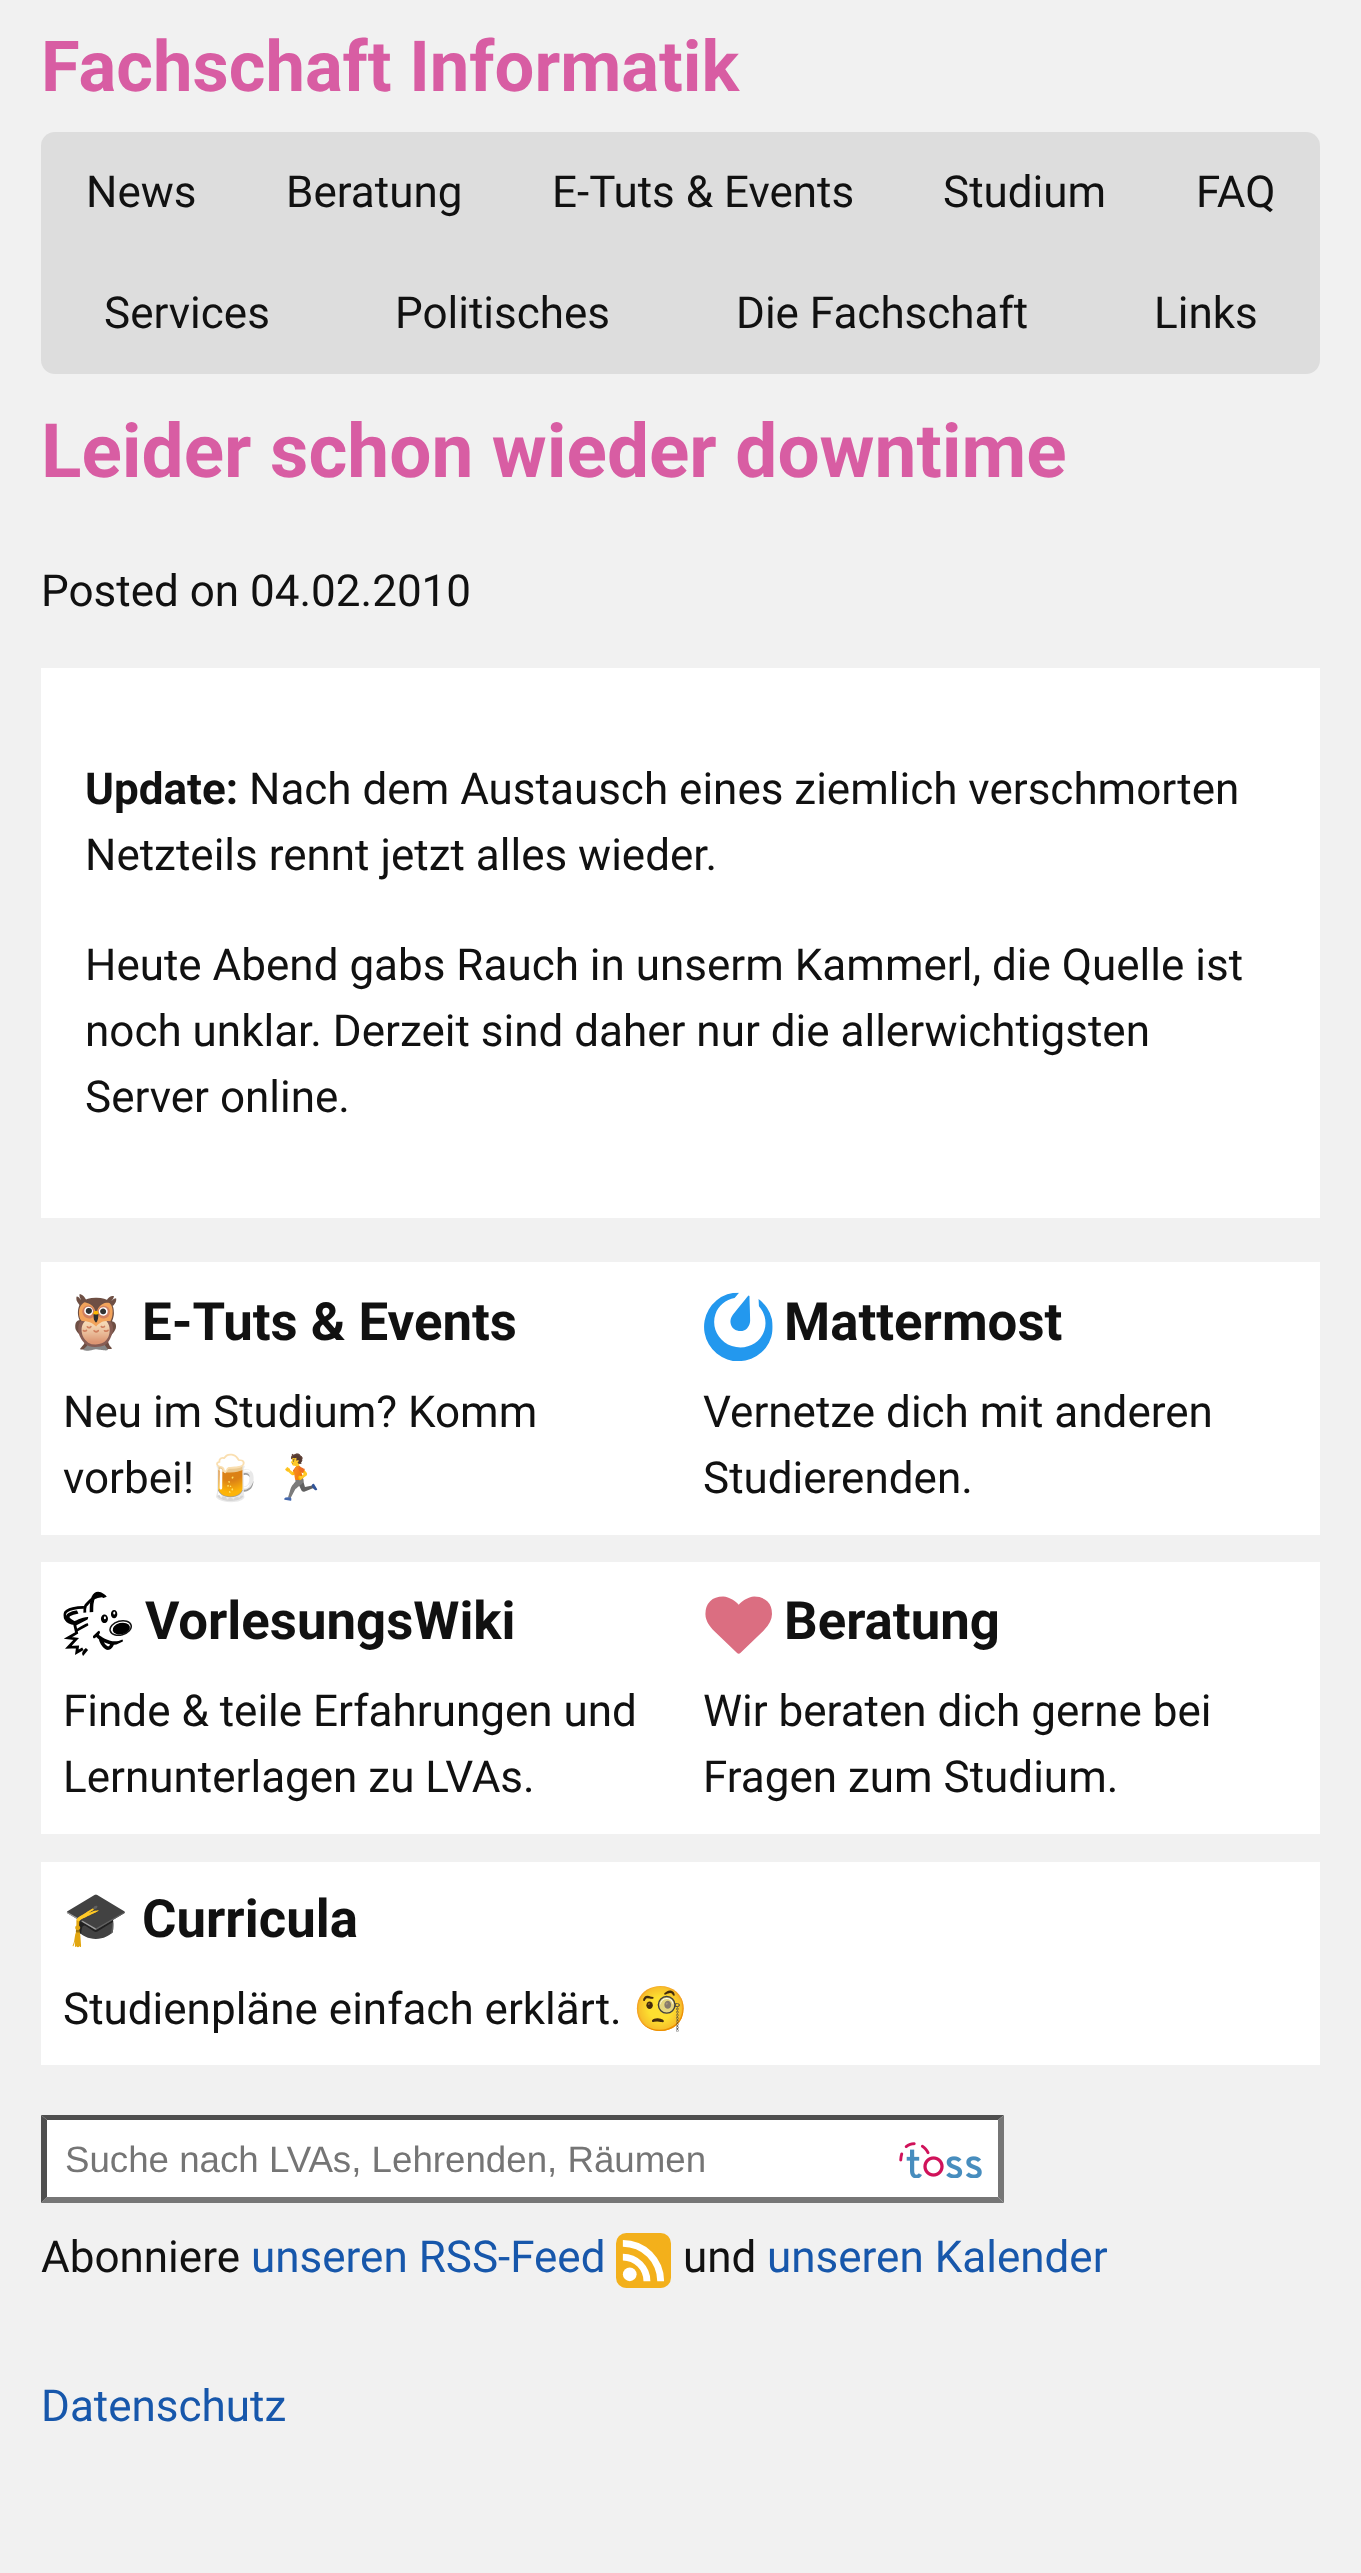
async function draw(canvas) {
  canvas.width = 1361;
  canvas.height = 2573;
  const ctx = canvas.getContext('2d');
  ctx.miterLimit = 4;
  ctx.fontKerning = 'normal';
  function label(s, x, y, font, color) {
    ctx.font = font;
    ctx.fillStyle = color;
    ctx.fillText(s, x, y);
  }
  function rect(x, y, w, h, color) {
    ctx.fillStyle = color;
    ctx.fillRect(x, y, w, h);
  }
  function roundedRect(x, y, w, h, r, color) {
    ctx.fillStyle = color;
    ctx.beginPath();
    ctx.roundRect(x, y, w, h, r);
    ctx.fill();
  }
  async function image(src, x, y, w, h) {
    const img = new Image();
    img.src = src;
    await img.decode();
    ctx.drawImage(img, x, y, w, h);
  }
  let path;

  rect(0, 0, 1361, 2573, '#f1f1f1');
  label('Fachschaft Informatik', 41, 91, 'bold 70.5px Roboto', '#d85da3');
  roundedRect(41, 132, 1279, 242, 14, '#ddd');
  label('News', 86, 207, '44px Roboto', '#111');
  label('Beratung', 286, 207, '44px Roboto', '#111');
  label('E-Tuts & Events', 552, 207, '44px Roboto', '#111');
  label('Studium', 943, 207, '44px Roboto', '#111');
  label('FAQ', 1196, 207, '44px Roboto', '#111');
  label('Services', 104, 328, '44px Roboto', '#111');
  label('Politisches', 395, 328, '44px Roboto', '#111');
  label('Die Fachschaft', 736, 328, '44px Roboto', '#111');
  label('Links', 1154, 328, '44px Roboto', '#111');
  label('Leider schon wieder downtime', 41, 477, 'bold 74.75px Roboto', '#d85da3');
  label('Posted on 04.02.2010', 41, 606, '44px Roboto', '#111');
  rect(41, 668, 1279, 550, '#fff');
  label('Update:', 85, 804, 'bold 44px Roboto', '#111');
  label('Nach dem Austausch eines ziemlich verschmorten', 249, 804, '44px Roboto', '#111');
  label('Netzteils rennt jetzt alles wieder.', 85, 870, '44px Roboto', '#111');
  label('Heute Abend gabs Rauch in unserm Kammerl, die Quelle ist', 85, 980, '44px Roboto', '#111');
  label('noch unklar. Derzeit sind daher nur die allerwichtigsten', 85, 1046, '44px Roboto', '#111');
  label('Server online.', 85, 1112, '44px Roboto', '#111');
  rect(41, 1262, 1279, 273, '#fff');
  label('🦉', 63, 1340, 'bold 52.75px Noto Color Emoji', '#111');
  label('E-Tuts & Events', 142, 1340, 'bold 52.75px Roboto', '#111');
  label('Neu im Studium? Komm', 63, 1427, '44px Roboto', '#111');
  label('vorbei!', 63, 1493, '44px Roboto', '#111');
  label('🍺', 205, 1493, '44px Noto Color Emoji', '#111');
  label('🏃', 271, 1493, '44px Noto Color Emoji', '#111');
  await image('assets/img1.png', 704, 1292, 69, 69);
  label('Mattermost', 784, 1340, 'bold 52.75px Roboto', '#111');
  label('Vernetze dich mit anderen', 703, 1427, '44px Roboto', '#111');
  label('Studierenden.', 703, 1493, '44px Roboto', '#111');
  rect(41, 1562, 1279, 272, '#fff');
  await image('assets/img2.png', 63, 1591, 69, 65);
  label('VorlesungsWiki', 145, 1639, 'bold 52.75px Roboto', '#111');
  label('Finde & teile Erfahrungen und', 63, 1726, '44px Roboto', '#111');
  label('Lernunterlagen zu LVAs.', 63, 1792, '44px Roboto', '#111');
  await image('assets/img3.png', 705, 1596, 67, 58);
  label('Beratung', 784, 1639, 'bold 52.75px Roboto', '#111');
  label('Wir beraten dich gerne bei', 703, 1726, '44px Roboto', '#111');
  label('Fragen zum Studium.', 703, 1792, '44px Roboto', '#111');
  rect(41, 1862, 1279, 203, '#fff');
  label('🎓', 63, 1937, 'bold 52.75px Noto Color Emoji', '#111');
  label('Curricula', 142, 1937, 'bold 52.75px Roboto', '#111');
  label('Studienpläne einfach erklärt.', 63, 2024, '44px Roboto', '#111');
  label('🧐', 633, 2024, '44px Noto Color Emoji', '#111');
  rect(41, 2115, 963, 88, '#fff');
  await image('assets/img4.png', 899, 2142, 83, 36);
  ctx.fillStyle = '#4f4f4f';
  path = new Path2D('M41 2115H1004L998 2120H47Z');
  ctx.fill(path);
  ctx.fillStyle = '#767676';
  path = new Path2D('M1004 2115V2203L998 2197V2120Z');
  ctx.fill(path);
  path = new Path2D('M1004 2203H41L47 2197H998Z');
  ctx.fill(path);
  ctx.fillStyle = '#4f4f4f';
  path = new Path2D('M41 2203V2115L47 2120V2197Z');
  ctx.fill(path);
  label('Suche nach LVAs, Lehrenden, Räumen', 65, 2172, '36.7px Liberation Sans', '#757575');
  label('Abonniere', 41, 2272, '44px Roboto', '#111');
  label('unseren RSS-Feed', 251, 2272, '44px Roboto', '#1757ab');
  await image('assets/img5.png', 616, 2233, 55, 55);
  label('und', 683, 2272, '44px Roboto', '#111');
  label('unseren Kalender', 767, 2272, '44px Roboto', '#1757ab');
  label('Datenschutz', 41, 2421, '44px Roboto', '#1757ab');
}

draw(document.querySelector('canvas'));
